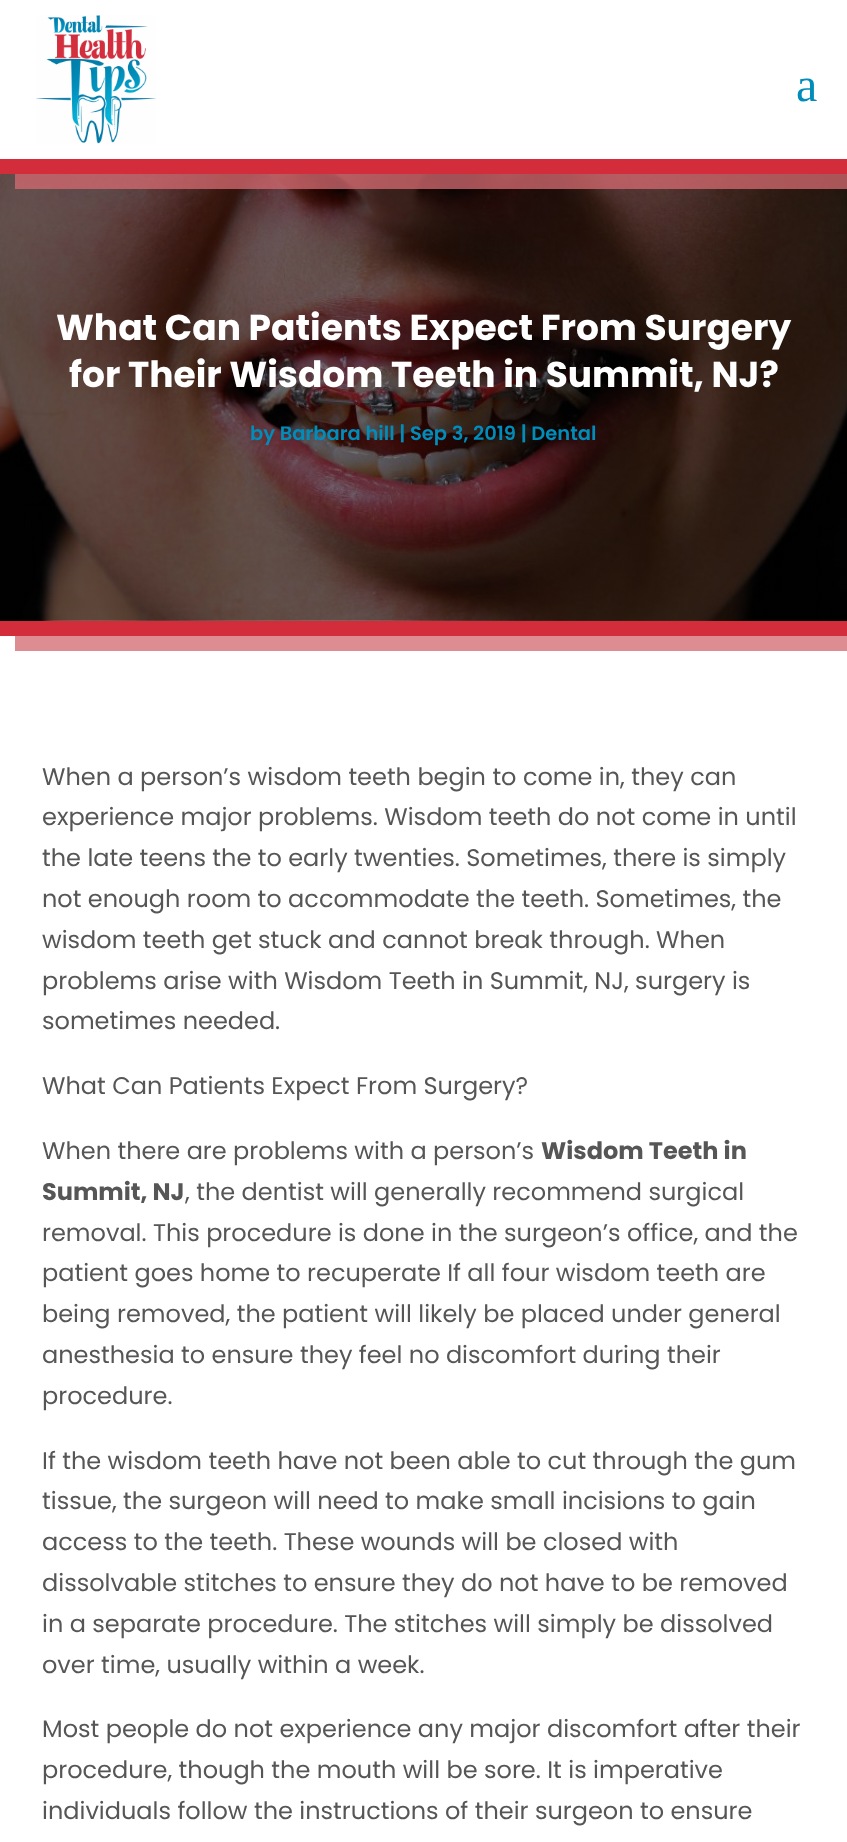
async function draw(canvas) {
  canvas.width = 847;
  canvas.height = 1842;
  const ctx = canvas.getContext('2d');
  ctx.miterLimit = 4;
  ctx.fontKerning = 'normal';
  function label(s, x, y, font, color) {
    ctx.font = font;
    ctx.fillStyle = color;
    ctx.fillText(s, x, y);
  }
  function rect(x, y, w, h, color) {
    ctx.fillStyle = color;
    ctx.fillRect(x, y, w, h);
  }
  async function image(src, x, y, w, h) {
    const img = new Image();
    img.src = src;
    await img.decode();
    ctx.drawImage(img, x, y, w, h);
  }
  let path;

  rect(0, 0, 847, 1842, '#fff');
  await image('assets/img2.png', 0, 174, 847, 447);
  ctx.fillStyle = '#d36970c4';
  path = new Path2D('M15 174V189H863V15H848V174Z');
  ctx.fill(path);
  rect(0, 159, 847, 15, '#d32d3c');
  await image('assets/img1.png', 36, 15, 120, 129);
  label('a', 796, 101, '48px Liberation Serif', '#018cba');
  ctx.fillStyle = '#dd8c91';
  path = new Path2D('M15 636V651H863V189H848V636Z');
  ctx.fill(path);
  rect(0, 621, 847, 15, '#d32d3c');
  label('What Can Patients Expect From Surgery', 56, 340, 'bold 36px Poppins', '#fff');
  label('for Their Wisdom Teeth in Summit, NJ?', 69, 387, 'bold 36px Poppins', '#fff');
  label('by Barbara hill | Sep 3, 2019 | Dental', 250, 440, '600 19.5px Poppins', '#018cba');
  label('When a person’s wisdom teeth begin to come in, they can', 42, 785, '24px Poppins', '#565656');
  label('experience major problems. Wisdom teeth do not come in until', 42, 825, '24px Poppins', '#565656');
  label('the late teens the to early twenties. Sometimes, there is simply', 42, 866, '24px Poppins', '#565656');
  label('not enough room to accommodate the teeth. Sometimes, the', 42, 907, '24px Poppins', '#565656');
  label('wisdom teeth get stuck and cannot break through. When', 42, 948, '24px Poppins', '#565656');
  label('problems arise with Wisdom Teeth in Summit, NJ, surgery is', 42, 989, '24px Poppins', '#565656');
  label('sometimes needed.', 42, 1029, '24px Poppins', '#565656');
  label('What Can Patients Expect From Surgery?', 42, 1094, '24px Poppins', '#565656');
  label('When there are problems with a person’s', 42, 1159, '24px Poppins', '#565656');
  label('Wisdom Teeth in', 541, 1159, 'bold 24px Poppins', '#565656');
  label('Summit, NJ', 42, 1200, 'bold 24px Poppins', '#565656');
  label(', the dentist will generally recommend surgical', 185, 1200, '24px Poppins', '#565656');
  label('removal. This procedure is done in the surgeon’s office, and the', 42, 1241, '24px Poppins', '#565656');
  label('patient goes home to recuperate If all four wisdom teeth are', 42, 1281, '24px Poppins', '#565656');
  label('being removed, the patient will likely be placed under general', 42, 1322, '24px Poppins', '#565656');
  label('anesthesia to ensure they feel no discomfort during their', 42, 1363, '24px Poppins', '#565656');
  label('procedure.', 42, 1404, '24px Poppins', '#565656');
  label('If the wisdom teeth have not been able to cut through the gum', 42, 1469, '24px Poppins', '#565656');
  label('tissue, the surgeon will need to make small incisions to gain', 42, 1509, '24px Poppins', '#565656');
  label('access to the teeth. These wounds will be closed with', 42, 1550, '24px Poppins', '#565656');
  label('dissolvable stitches to ensure they do not have to be removed', 42, 1591, '24px Poppins', '#565656');
  label('in a separate procedure. The stitches will simply be dissolved', 42, 1632, '24px Poppins', '#565656');
  label('over time, usually within a week.', 42, 1673, '24px Poppins', '#565656');
  label('Most people do not experience any major discomfort after their', 42, 1737, '24px Poppins', '#565656');
  label('procedure, though the mouth will be sore. It is imperative', 42, 1778, '24px Poppins', '#565656');
  label('individuals follow the instructions of their surgeon to ensure', 42, 1819, '24px Poppins', '#565656');
}

draw(document.querySelector('canvas'));
